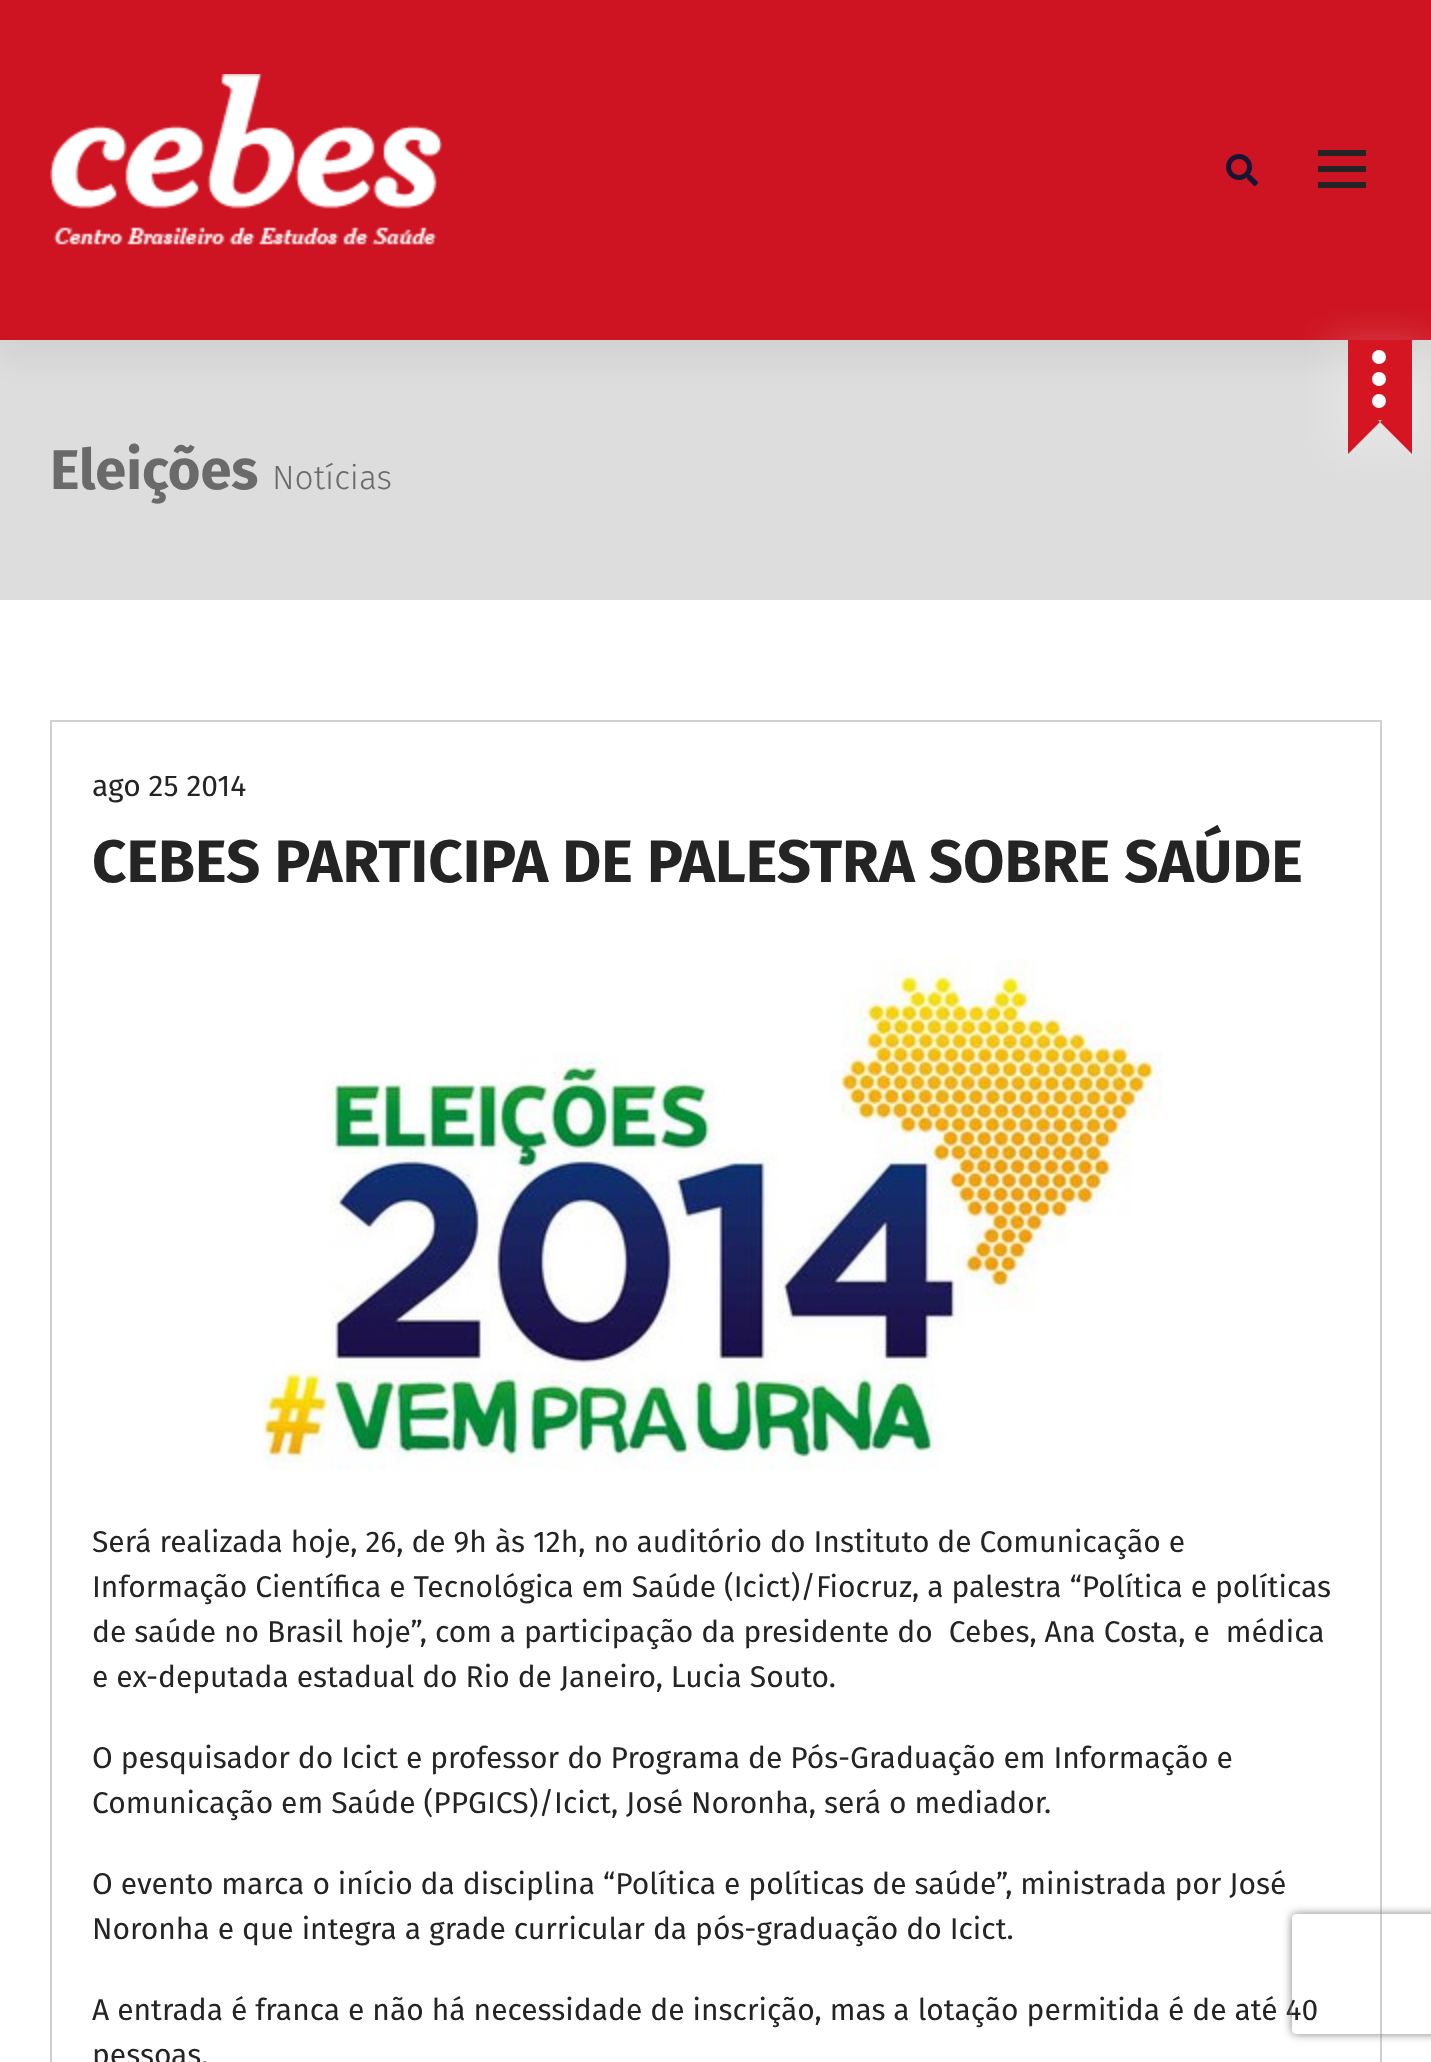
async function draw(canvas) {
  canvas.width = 1431;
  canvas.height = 2062;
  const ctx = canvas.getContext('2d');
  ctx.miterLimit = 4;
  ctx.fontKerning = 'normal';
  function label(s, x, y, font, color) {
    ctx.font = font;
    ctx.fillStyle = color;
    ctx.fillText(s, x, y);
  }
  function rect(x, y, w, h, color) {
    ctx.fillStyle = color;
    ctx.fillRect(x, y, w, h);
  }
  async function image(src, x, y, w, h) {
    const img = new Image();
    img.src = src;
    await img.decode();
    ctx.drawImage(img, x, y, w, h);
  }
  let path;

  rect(0, 0, 1431, 2062, '#fff');
  rect(0, 340, 1431, 260, '#ddd');
  ctx.fillStyle = '#0000000d';
  ctx.filter = 'blur(15px)';
  ctx.beginPath();
  ctx.rect(0, 20, 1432, 340);
  ctx.fill();
  ctx.filter = 'none';
  rect(0, 0, 1431, 340, '#ce1422');
  await image('assets/img1.png', 50, 74, 392, 171);
  await image('assets/img2.png', 1226, 154, 32, 32);
  rect(1318, 150, 48, 6, '#242424');
  rect(1318, 166, 48, 6, '#242424');
  rect(1318, 182, 48, 6, '#242424');
  ctx.fillStyle = '#ffffff33';
  ctx.filter = 'blur(20px)';
  ctx.beginPath();
  ctx.rect(1328, 340, 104, 120);
  ctx.fill();
  ctx.filter = 'none';
  rect(1348, 340, 64, 80, '#d61523');
  ctx.fillStyle = '#fff';
  ctx.beginPath();
  ctx.arc(1379, 379, 7, 0, 2 * Math.PI);
  ctx.fill();
  ctx.beginPath();
  ctx.arc(1379, 357, 7, 0, 2 * Math.PI);
  ctx.fill();
  ctx.fillStyle = '#d61523';
  path = new Path2D('M1412 390V454L1380 422Z');
  ctx.fill(path);
  path = new Path2D('M1348 454V390L1380 422Z');
  ctx.fill(path);
  ctx.fillStyle = '#fff';
  ctx.beginPath();
  ctx.arc(1379, 401, 7, 0, 2 * Math.PI);
  ctx.fill();
  label('Eleições', 50, 489, 'bold 56px Fira Sans', '#6a6a6a');
  label('Notícias', 272, 489, '300 33.5px Fira Sans', '#6a6a6a');
  ctx.strokeStyle = '#d0d0d0';
  ctx.lineWidth = 2;
  ctx.strokeRect(51, 721, 1330, 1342);
  label('ago 25 2014', 92, 796, '30px Fira Sans', '#242424');
  label('CEBES PARTICIPA DE PALESTRA SOBRE SAÚDE', 92, 882, 'bold 60px Fira Sans', '#242424');
  await image('assets/img3.png', 262, 958, 901, 513);
  label('Será realizada hoje, 26, de 9h às 12h, no auditório do Instituto de Comunicação e', 92, 1552, '30px Fira Sans', '#242424');
  label('Informação Científica e Tecnológica em Saúde (Icict)/Fiocruz, a palestra “Política e políticas', 92, 1597, '30px Fira Sans', '#242424');
  label('de saúde no Brasil hoje”, com a participação da presidente do  Cebes, Ana Costa, e  médica', 92, 1642, '30px Fira Sans', '#242424');
  label('e ex-deputada estadual do Rio de Janeiro, Lucia Souto.', 92, 1687, '30px Fira Sans', '#242424');
  label('O pesquisador do Icict e professor do Programa de Pós-Graduação em Informação e', 92, 1768, '30px Fira Sans', '#242424');
  label('Comunicação em Saúde (PPGICS)/Icict, José Noronha, será o mediador.', 92, 1813, '30px Fira Sans', '#242424');
  label('O evento marca o início da disciplina “Política e políticas de saúde”, ministrada por José', 92, 1894, '30px Fira Sans', '#242424');
  label('Noronha e que integra a grade curricular da pós-graduação do Icict.', 92, 1939, '30px Fira Sans', '#242424');
  label('A entrada é franca e não há necessidade de inscrição, mas a lotação permitida é de até 40', 92, 2020, '30px Fira Sans', '#242424');
  label('pessoas.', 92, 2065, '30px Fira Sans', '#242424');
  ctx.save();
  path = new Path2D('M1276 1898H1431V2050H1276ZM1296 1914H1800C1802 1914 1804 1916 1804 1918V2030C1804 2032 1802 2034 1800 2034H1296C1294 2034 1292 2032 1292 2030V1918C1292 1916 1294 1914 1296 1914Z');
  ctx.clip(path, 'evenodd');
  ctx.fillStyle = '#808080';
  ctx.filter = 'blur(5px)';
  ctx.beginPath();
  ctx.roundRect(1292, 1914, 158, 120, 4);
  ctx.fill();
  ctx.filter = 'none';
  ctx.restore();
}

draw(document.querySelector('canvas'));
